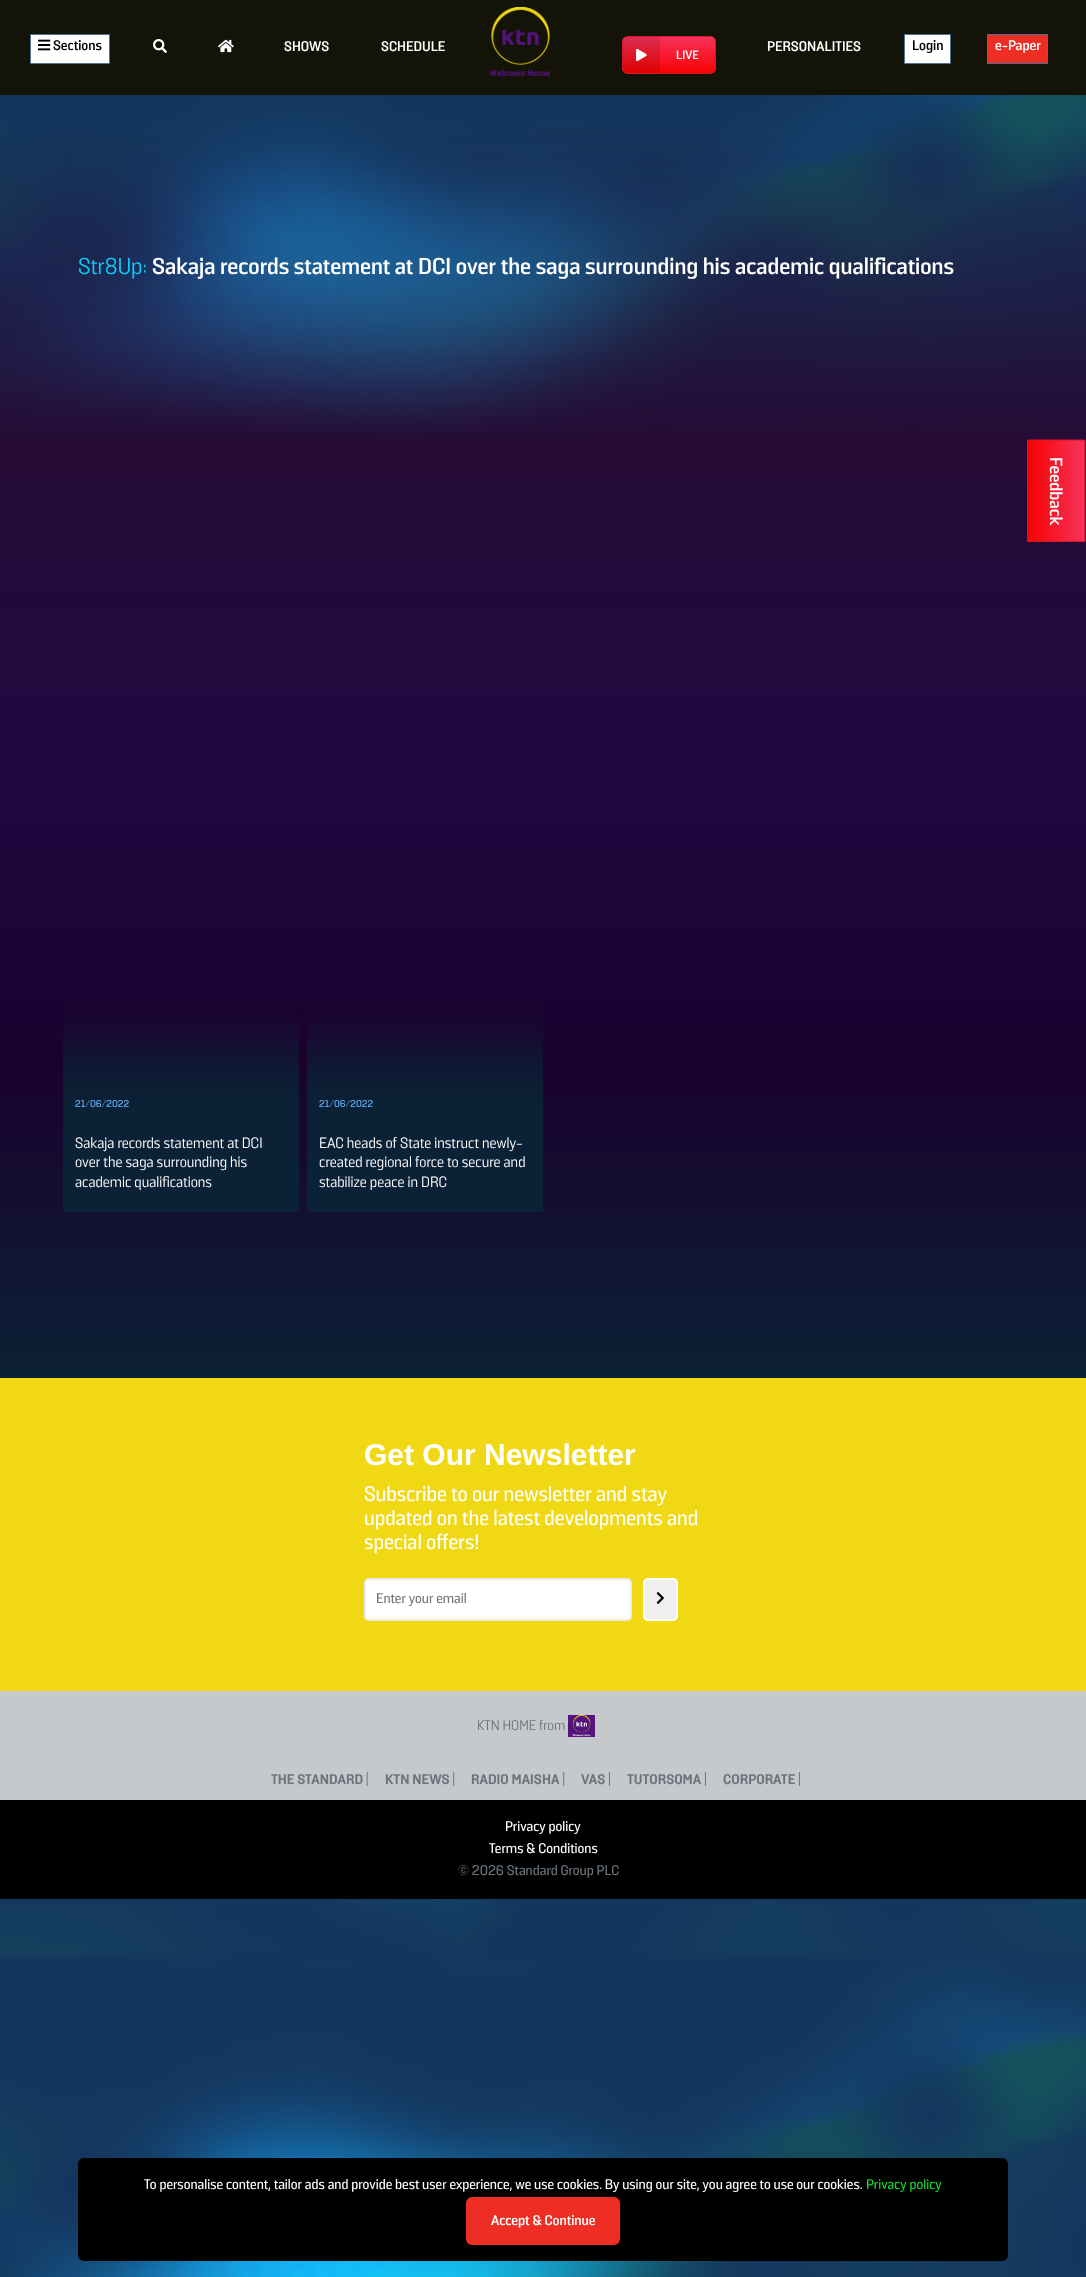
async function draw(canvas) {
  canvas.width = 1086;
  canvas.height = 2277;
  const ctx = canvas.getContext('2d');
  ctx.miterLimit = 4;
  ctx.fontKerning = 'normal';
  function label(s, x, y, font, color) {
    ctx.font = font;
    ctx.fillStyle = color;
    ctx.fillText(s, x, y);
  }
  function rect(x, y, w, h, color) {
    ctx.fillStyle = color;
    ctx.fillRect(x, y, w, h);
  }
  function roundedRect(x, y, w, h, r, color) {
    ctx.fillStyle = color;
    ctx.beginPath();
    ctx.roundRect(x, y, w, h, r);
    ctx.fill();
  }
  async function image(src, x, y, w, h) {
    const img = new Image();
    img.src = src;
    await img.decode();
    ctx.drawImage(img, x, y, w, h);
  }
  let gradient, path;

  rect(0, 0, 1086, 2277, '#fff');
  await image('assets/img1.png', 0, 95, 1086, 2182);
  rect(0, 0, 1086, 95, '#141308');
  ctx.fillStyle = '#fff';
  ctx.beginPath();
  ctx.rect(30.5, 34.5, 79, 29);
  ctx.fill();
  ctx.strokeStyle = '#507096';
  ctx.stroke();
  await image('assets/img2.png', 38, 39, 13, 12);
  label('Sections', 53, 50, 'bold 14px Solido', '#000');
  await image('assets/img3.png', 153, 39, 14, 14);
  await image('assets/img4.png', 218, 39, 16, 14);
  label('SHOWS', 284, 51, 'bold 14px Solido', '#fff');
  label('SCHEDULE', 381, 51, 'bold 14px Solido', '#fff');
  await image('assets/img5.png', 489, 7, 61, 69);
  label('PERSONALITIES', 767, 51, 'bold 14px Solido', '#fff');
  ctx.beginPath();
  ctx.rect(904.5, 34.5, 46, 29);
  ctx.fill();
  ctx.stroke();
  label('Login', 912, 50, 'bold 14px Solido', '#000');
  ctx.fillStyle = '#ee2e25';
  ctx.beginPath();
  ctx.rect(987.5, 34.5, 60, 29);
  ctx.fill();
  ctx.stroke();
  label('e-Paper', 995, 50, 'bold 14px Solido', '#fff');
  ctx.save();
  ctx.beginPath();
  ctx.roundRect(622, 36, 94, 38, 6);
  ctx.clip();
  gradient = ctx.createLinearGradient(669, 37, 669, 73);
  gradient.addColorStop(0, '#f8325b');
  gradient.addColorStop(1, '#f60202');
  ctx.fillStyle = gradient;
  ctx.fillRect(622, 37, 94, 36);
  ctx.restore();
  ctx.beginPath();
  ctx.roundRect(622.5, 36.5, 93, 37, 5.5);
  ctx.strokeStyle = '#d51729';
  ctx.stroke();
  ctx.fillStyle = '#0000001a';
  ctx.beginPath();
  ctx.roundRect(623, 37, 37, 36, [6, 0, 0, 6]);
  ctx.fill();
  await image('assets/img6.png', 636, 48, 11, 14);
  label('LIVE', 676, 59, 'bold 12px Solido', '#fff');
  label('Str8Up:', 78, 274, '23px Solido', '#0bcdf9');
  label('Sakaja records statement at DCI over the saga surrounding his academic qualifications', 152, 274, 'bold 23px Solido', '#fff');
  label('21/06/2022', 75, 1107, '500 10px Solido', '#65b5ff');
  label('Sakaja records statement at DCI', 75, 1148, '15px Solido', '#fff');
  label('over the saga surrounding his', 75, 1167, '15px Solido', '#fff');
  label('academic qualifications', 75, 1187, '15px Solido', '#fff');
  label('21/06/2022', 319, 1107, '500 10px Solido', '#65b5ff');
  label('EAC heads of State instruct newly-', 319, 1148, '15px Solido', '#fff');
  label('created regional force to secure and', 319, 1167, '15px Solido', '#fff');
  label('stabilize peace in DRC', 319, 1187, '15px Solido', '#fff');
  rect(1084, 440, 1, 101, '#ee2e25');
  gradient = ctx.createLinearGradient(1084, 491, 1028, 491);
  gradient.addColorStop(0, '#f8325b');
  gradient.addColorStop(1, '#f60202');
  ctx.fillStyle = gradient;
  ctx.fillRect(1028, 440, 56, 101);
  path = new Path2D('M1085 440V541.5H1027.5V440Z');
  ctx.stroke(path);
  ctx.font = 'bold 17.5px Solido';
  ctx.fillStyle = '#fff';
  ctx.save();
  ctx.translate(1050, 457);
  ctx.rotate(90 * Math.PI / 180);
  ctx.fillText('Feedback', 0, 0);
  ctx.restore();
  rect(0, 1378, 1086, 313, '#f0d814');
  label('Get Our Newsletter', 364, 1465, 'bold 30px Liberation Sans', '#fff');
  label('Subscribe to our newsletter and stay', 364, 1501, '500 21px Solido', '#fff');
  label('updated on the latest developments and', 364, 1525, '500 21px Solido', '#fff');
  label('special offers!', 364, 1549, '500 21px Solido', '#fff');
  ctx.beginPath();
  ctx.roundRect(365, 1579, 266, 41, 4);
  ctx.fill();
  ctx.strokeStyle = '#ececec';
  ctx.lineWidth = 2;
  ctx.stroke();
  label('Enter your email', 376, 1603, '500 14px Solido', '#757575');
  ctx.fillStyle = '#efefef';
  ctx.beginPath();
  ctx.roundRect(644, 1579, 33, 41, 4);
  ctx.fill();
  ctx.strokeStyle = '#fff';
  ctx.stroke();
  await image('assets/img7.png', 656, 1592, 8, 12);
  rect(0, 1691, 1086, 109, '#c5c9cc');
  label('KTN HOME from', 477, 1730, '14px Solido', '#6c757d');
  await image('assets/img8.png', 568, 1715, 27, 22);
  label('THE STANDARD |', 271, 1784, '800 14px Solido', '#6c757d');
  label('KTN NEWS |', 385, 1784, '800 14px Solido', '#6c757d');
  label('RADIO MAISHA |', 471, 1784, '800 14px Solido', '#6c757d');
  label('VAS |', 581, 1784, '800 14px Solido', '#6c757d');
  label('TUTORSOMA |', 627, 1784, '800 14px Solido', '#6c757d');
  label('CORPORATE |', 723, 1784, '800 14px Solido', '#6c757d');
  rect(0, 1800, 1086, 99, '#000');
  label('Privacy policy', 505, 1831, '500 14px Solido', '#fff');
  label('Terms & Conditions', 489, 1853, '500 14px Solido', '#fff');
  label('© 2026 Standard Group PLC', 458, 1875, '500 14px Solido', '#6c757d');
  roundedRect(78, 2158, 930, 103, 6, '#000');
  label('To personalise content, tailor ads and provide best user experience, we use cookies. By using our site, you agree to use our cookies.', 144, 2189, '500 14px Solido', '#fff');
  label('Privacy policy', 866, 2189, '500 14px Solido', '#0fda31');
  roundedRect(466, 2197, 154, 48, 6, '#ee2e24');
  label('Accept & Continue', 491, 2225, 'bold 14px Solido', '#fff');
}

draw(document.querySelector('canvas'));
